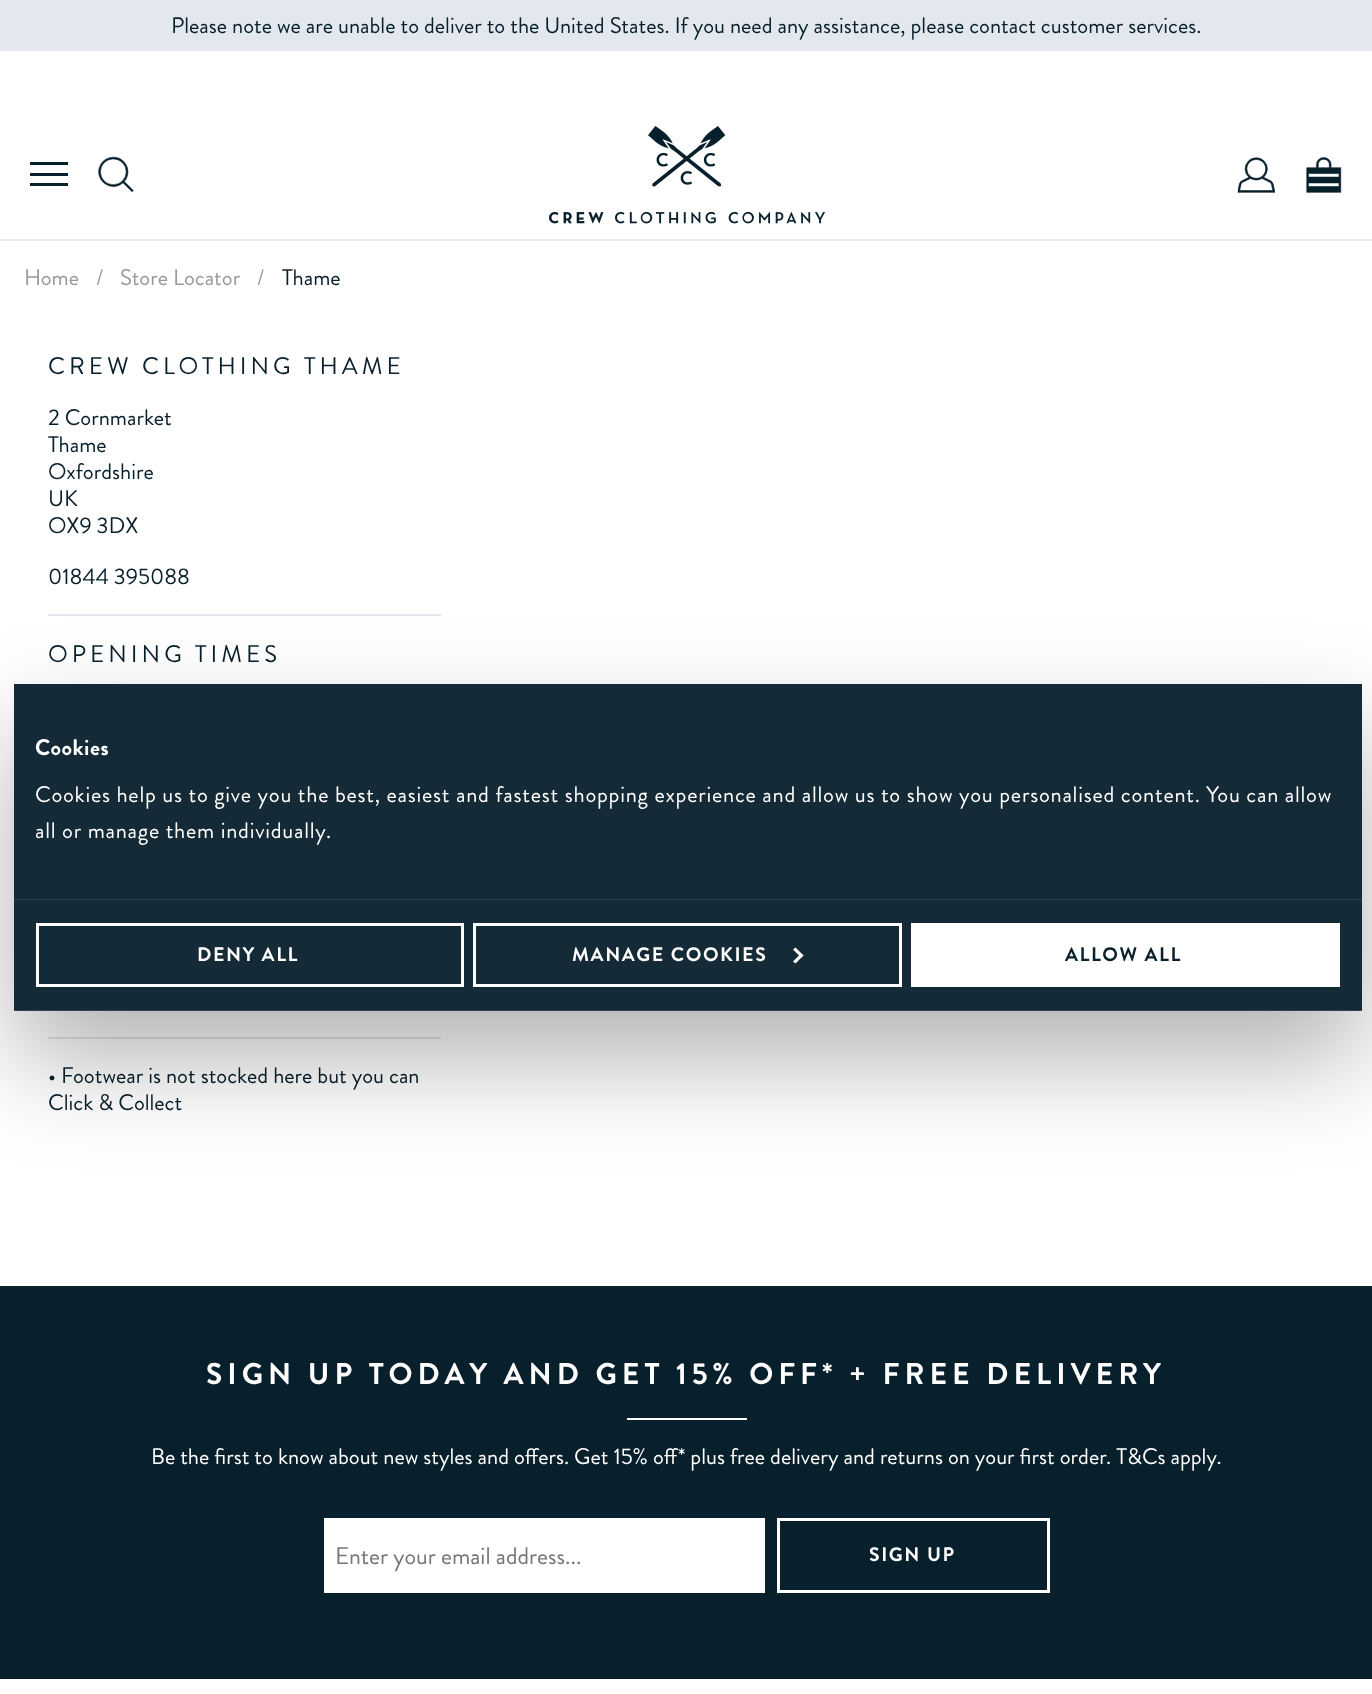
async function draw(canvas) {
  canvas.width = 1372;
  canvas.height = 1694;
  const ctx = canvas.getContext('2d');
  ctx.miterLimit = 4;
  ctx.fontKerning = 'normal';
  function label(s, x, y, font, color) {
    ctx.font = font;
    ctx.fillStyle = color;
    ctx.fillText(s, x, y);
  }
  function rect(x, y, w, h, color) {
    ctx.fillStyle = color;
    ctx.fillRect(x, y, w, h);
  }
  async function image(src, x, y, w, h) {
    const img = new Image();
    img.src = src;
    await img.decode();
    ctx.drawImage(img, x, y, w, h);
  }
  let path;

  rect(0, 0, 1372, 1694, '#fff');
  rect(0, 0, 1372, 51, '#e2e8ee');
  label('Please note we are unable to deliver to the United States. If you need any assistance, please contact customer services.', 171, 33, '22.5px Brandon Grotesque', '#081f2c');
  rect(0, 239, 1372, 2, '#e2e8ee');
  rect(30, 162, 38, 3, '#081f2c');
  rect(30, 173, 38, 3, '#081f2c');
  rect(30, 183, 38, 3, '#081f2c');
  await image('assets/img1.png', 98, 156, 36, 36);
  await image('assets/img2.png', 549, 126, 276, 98);
  await image('assets/img3.png', 1237, 157, 38, 36);
  await image('assets/img4.png', 1306, 157, 36, 36);
  label('Home', 24, 285, '22.5px Brandon Grotesque', '#999');
  label('/', 96, 285, '22.5px Brandon Grotesque', '#999');
  label('Store Locator', 120, 285, '22.5px Brandon Grotesque', '#999');
  label('/', 257, 285, '22.5px Brandon Grotesque', '#999');
  label('Thame', 282, 285, '22.5px Brandon Grotesque', '#081f2c');
  rect(48, 614, 393, 2, '#e2e8ee');
  ctx.letterSpacing = '4px';
  label('CREW CLOTHING THAME', 48, 374, '24px Brandon Grotesque', '#081f2c');
  ctx.letterSpacing = '0px';
  label('2 Cornmarket', 48, 425, '22.5px Brandon Grotesque', '#081f2c');
  label('Thame', 48, 452, '22.5px Brandon Grotesque', '#081f2c');
  label('Oxfordshire', 48, 479, '22.5px Brandon Grotesque', '#081f2c');
  label('UK', 48, 506, '22.5px Brandon Grotesque', '#081f2c');
  label('OX9 3DX', 48, 533, '22.5px Brandon Grotesque', '#081f2c');
  label('01844 395088', 48, 584, '22.5px Brandon Grotesque', '#081f2c');
  rect(48, 1037, 393, 2, '#e2e8ee');
  ctx.letterSpacing = '4px';
  label('OPENING TIMES', 48, 662, '24px Brandon Grotesque', '#081f2c');
  ctx.letterSpacing = '0px';
  label('• Footwear is not stocked here but you can', 48, 1083, '22.5px Brandon Grotesque', '#081f2c');
  label('Click & Collect', 48, 1110, '22.5px Brandon Grotesque', '#081f2c');
  rect(0, 1286, 1372, 393, '#081f2c');
  ctx.letterSpacing = '5px';
  label('SIGN UP TODAY AND GET 15% OFF* + FREE DELIVERY', 206, 1384, 'bold 30px Brandon Grotesque', '#fff');
  rect(627, 1418, 120, 2, '#fff');
  ctx.letterSpacing = '0px';
  label('Be the first to know about new styles and offers. Get 15% off* plus free delivery and returns on your first order. T&Cs apply.', 151, 1464, '22.5px Brandon Grotesque', '#fff');
  rect(324, 1518, 441, 75, '#fff');
  label('Enter your email address...', 335, 1564, '24px Brandon Grotesque', '#757575');
  ctx.strokeStyle = '#fff';
  ctx.lineWidth = 3;
  ctx.strokeRect(778.5, 1519.5, 270, 72);
  ctx.letterSpacing = '1.6px';
  label('SIGN UP', 869, 1561, 'bold 19.5px Brandon Grotesque', '#fff');
  ctx.save();
  path = new Path2D('M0 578H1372V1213H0ZM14 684H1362V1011H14Z');
  ctx.clip(path, 'evenodd');
  ctx.fillStyle = '#0000004d';
  ctx.filter = 'blur(51px)';
  ctx.beginPath();
  ctx.rect(14, 732, 1348, 327);
  ctx.fill();
  ctx.filter = 'none';
  ctx.restore();
  rect(14, 684, 1348, 326, '#081f2cf2');
  rect(14, 899, 1348, 1, '#2e424d');
  ctx.letterSpacing = '0.5px';
  label('Cookies', 35, 755, 'bold 22.5px Brandon Grotesque', '#fff');
  ctx.letterSpacing = '0.75px';
  label('Cookies help us to give you the best, easiest and fastest shopping experience and allow us to show you personalised content. You can allow', 35, 802, '22.5px Brandon Grotesque', '#fff');
  label('all or manage them individually.', 35, 838, '22.5px Brandon Grotesque', '#fff');
  rect(14, 1010, 1348, 1, '#2e424d');
  ctx.strokeRect(37.5, 924.5, 425, 61);
  ctx.letterSpacing = '1.6px';
  label('DENY ALL', 197, 961, 'bold 19.5px Brandon Grotesque', '#fff');
  ctx.strokeRect(474.5, 924.5, 426, 61);
  label('MANAGE COOKIES', 572, 961, 'bold 19.5px Brandon Grotesque', '#fff');
  path = new Path2D('M795.5 947.5L803.5 955.5L801 957.5L793 949.5Z');
  ctx.fill(path);
  path = new Path2D('M801 953.5L803.5 955.5L795.5 963.5L793 961.5Z');
  ctx.fill(path);
  rect(911, 923, 429, 64, '#fff');
  label('ALLOW ALL', 1065, 961, 'bold 19.5px Brandon Grotesque', '#081f2c');
}

draw(document.querySelector('canvas'));
